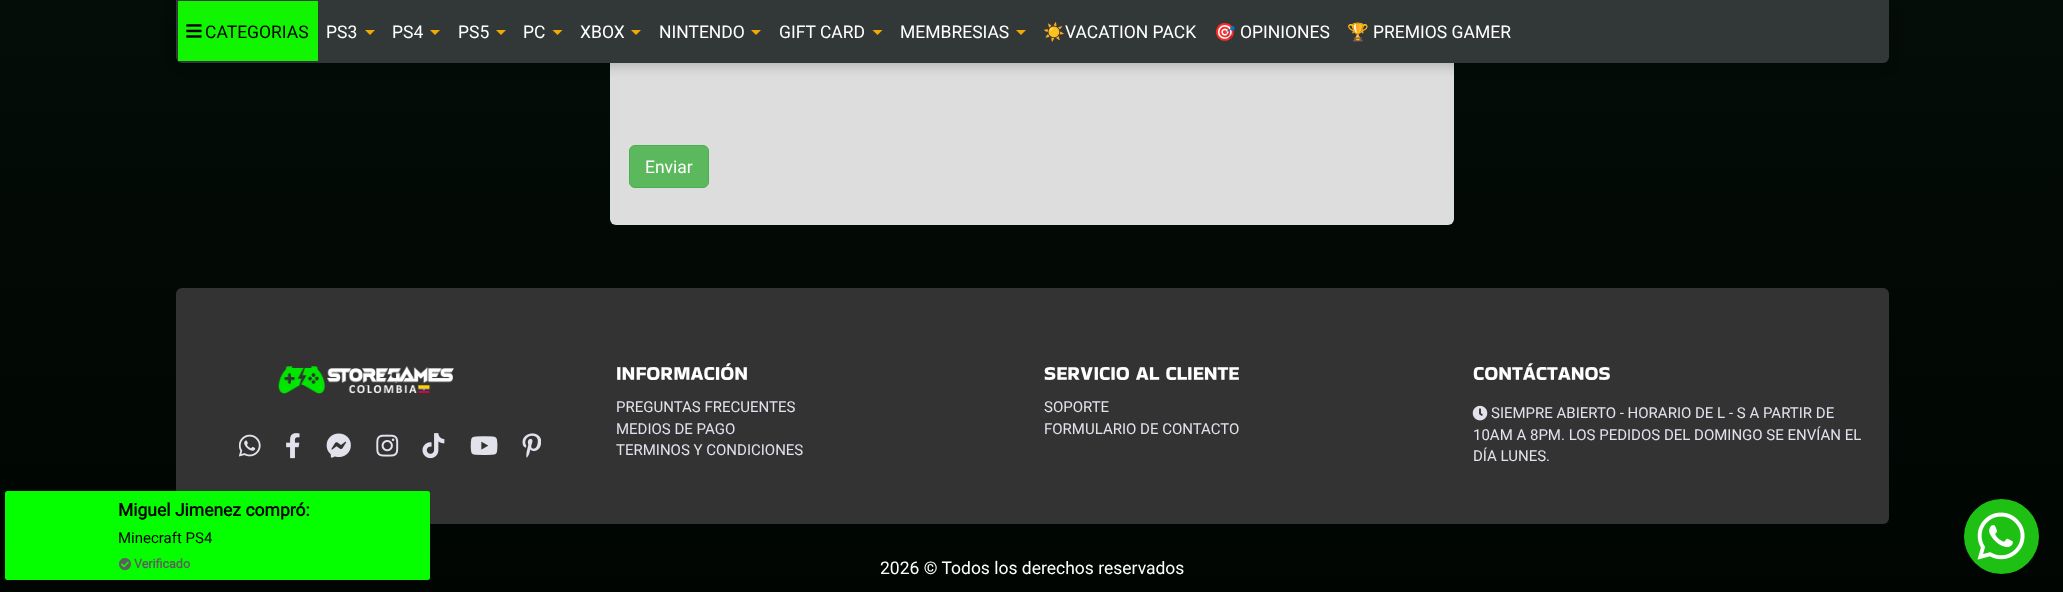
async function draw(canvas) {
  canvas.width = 2063;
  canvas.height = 592;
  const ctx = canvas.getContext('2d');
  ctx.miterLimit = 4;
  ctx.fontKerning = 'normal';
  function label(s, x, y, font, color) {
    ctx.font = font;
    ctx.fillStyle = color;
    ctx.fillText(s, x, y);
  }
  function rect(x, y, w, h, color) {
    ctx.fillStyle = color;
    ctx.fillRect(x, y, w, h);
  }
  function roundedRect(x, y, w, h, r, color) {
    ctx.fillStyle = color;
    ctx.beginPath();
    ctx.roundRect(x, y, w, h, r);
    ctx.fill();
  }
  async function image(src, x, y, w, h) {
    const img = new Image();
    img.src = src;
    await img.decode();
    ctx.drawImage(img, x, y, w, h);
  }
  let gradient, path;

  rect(0, 0, 2063, 592, '#fff');
  gradient = ctx.createLinearGradient(1032, -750, 1032, 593);
  gradient.addColorStop(0, '#091710');
  gradient.addColorStop(1, '#000502');
  ctx.fillStyle = gradient;
  ctx.fillRect(0, 0, 2063, 592);
  roundedRect(610, -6, 844, 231, 6, '#ddd');
  ctx.fillStyle = '#00000033';
  ctx.filter = 'blur(6px)';
  ctx.beginPath();
  ctx.roundRect(176, 4, 1713, 62, 6);
  ctx.fill();
  ctx.filter = 'none';
  ctx.fillStyle = '#323737';
  ctx.beginPath();
  ctx.roundRect(176, 0, 1713, 63, [0, 0, 6, 6]);
  ctx.fill();
  rect(178, 1, 140, 60, '#11f500');
  await image('assets/img1.png', 186, 24, 16, 14);
  label('CATEGORIAS', 205, 38, '17.5px Roboto', '#000');
  label('PS3', 326, 38, '17.5px Roboto', '#fff');
  ctx.fillStyle = '#f1ab00';
  path = new Path2D('M365 30H375L370 35Z');
  ctx.fill(path);
  label('PS4', 392, 38, '17.5px Roboto', '#fff');
  ctx.fillStyle = '#f1ab00';
  path = new Path2D('M430 30H440L435 35Z');
  ctx.fill(path);
  label('PS5', 458, 38, '17.5px Roboto', '#fff');
  ctx.fillStyle = '#f1ab00';
  path = new Path2D('M496 30H506L501 35Z');
  ctx.fill(path);
  label('PC', 523, 38, '17.5px Roboto', '#fff');
  ctx.fillStyle = '#f1ab00';
  path = new Path2D('M552.5 30H562.5L557.5 35Z');
  ctx.fill(path);
  label('XBOX', 580, 38, '17.5px Roboto', '#fff');
  ctx.fillStyle = '#f1ab00';
  path = new Path2D('M631 30H641L636 35Z');
  ctx.fill(path);
  label('NINTENDO', 659, 38, '17.5px Roboto', '#fff');
  ctx.fillStyle = '#f1ab00';
  path = new Path2D('M751 30H761L756 35Z');
  ctx.fill(path);
  label('GIFT CARD', 779, 38, '17.5px Roboto', '#fff');
  ctx.fillStyle = '#f1ab00';
  path = new Path2D('M872.5 30H882.5L877.5 35Z');
  ctx.fill(path);
  label('MEMBRESIAS', 900, 38, '17.5px Roboto', '#fff');
  ctx.fillStyle = '#f1ab00';
  path = new Path2D('M1016 30H1026L1021 35Z');
  ctx.fill(path);
  label('☀️', 1043, 38, '17.5px Noto Color Emoji', '#fff');
  label('VACATION PACK', 1065, 38, '17.5px Roboto', '#fff');
  label('🎯', 1214, 38, '17.5px Noto Color Emoji', '#fff');
  label('OPINIONES', 1240, 38, '17.5px Roboto', '#fff');
  label('🏆', 1347, 38, '17.5px Noto Color Emoji', '#fff');
  label('PREMIOS GAMER', 1373, 38, '17.5px Roboto', '#fff');
  ctx.fillStyle = '#5cb85c';
  ctx.beginPath();
  ctx.roundRect(629.5, 145.5, 79, 42, 5.5);
  ctx.fill();
  ctx.strokeStyle = '#4cae4c';
  ctx.stroke();
  label('Enviar', 645, 173, '17.5px Roboto', '#fff');
  roundedRect(176, 288, 1713, 236, 6, '#333');
  roundedRect(5, 491, 425, 89, 2.5, '#05ff00');
  label('Miguel Jimenez compró:', 118, 516, 'bold 17.5px Roboto', '#000');
  label('Minecraft PS4', 118, 543, '15px Roboto', '#000');
  await image('assets/img2.png', 119, 558, 12, 13);
  label('Verificado', 134, 568, 'bold 12.5px Roboto', '#5e5e5e');
  await image('assets/img3.png', 278, 366, 176, 28);
  await image('assets/img4.png', 239, 434, 22, 23);
  await image('assets/img5.png', 286, 433, 14, 26);
  await image('assets/img6.png', 326, 433, 25, 25);
  await image('assets/img7.png', 376, 434, 23, 23);
  await image('assets/img8.png', 422, 433, 23, 26);
  await image('assets/img9.png', 470, 436, 28, 19);
  await image('assets/img10.png', 522, 433, 19, 25);
  label('INFORMACIÓN', 616, 380, '20px Bakbak One', '#fff');
  label('PREGUNTAS FRECUENTES', 616, 412, '15px Roboto', '#e2e2ec');
  label('MEDIOS DE PAGO', 616, 434, '15px Roboto', '#e2e2ec');
  label('TERMINOS Y CONDICIONES', 616, 455, '15px Roboto', '#e2e2ec');
  label('SERVICIO AL CLIENTE', 1044, 380, '20px Bakbak One', '#fff');
  label('SOPORTE', 1044, 412, '15px Roboto', '#e2e2ec');
  label('FORMULARIO DE CONTACTO', 1044, 434, '15px Roboto', '#e2e2ec');
  label('CONTÁCTANOS', 1473, 380, '20px Bakbak One', '#fff');
  await image('assets/img11.png', 1472, 405, 16, 16);
  label('SIEMPRE ABIERTO - HORARIO DE L - S A PARTIR DE', 1491, 418, '15px Roboto', '#e2e2ec');
  label('10AM A 8PM. LOS PEDIDOS DEL DOMINGO SE ENVÍAN EL', 1473, 440, '15px Roboto', '#e2e2ec');
  label('DÍA LUNES.', 1473, 461, '15px Roboto', '#e2e2ec');
  label('2026 © Todos los derechos reservados', 880, 574, '17.5px Roboto', '#fff');
  ctx.fillStyle = '#1ec113';
  ctx.beginPath();
  ctx.arc(2001.5, 536.5, 37.5, 0, 2 * Math.PI);
  ctx.fill();
  await image('assets/img12.png', 1977, 512, 48, 48);
}

draw(document.querySelector('canvas'));
